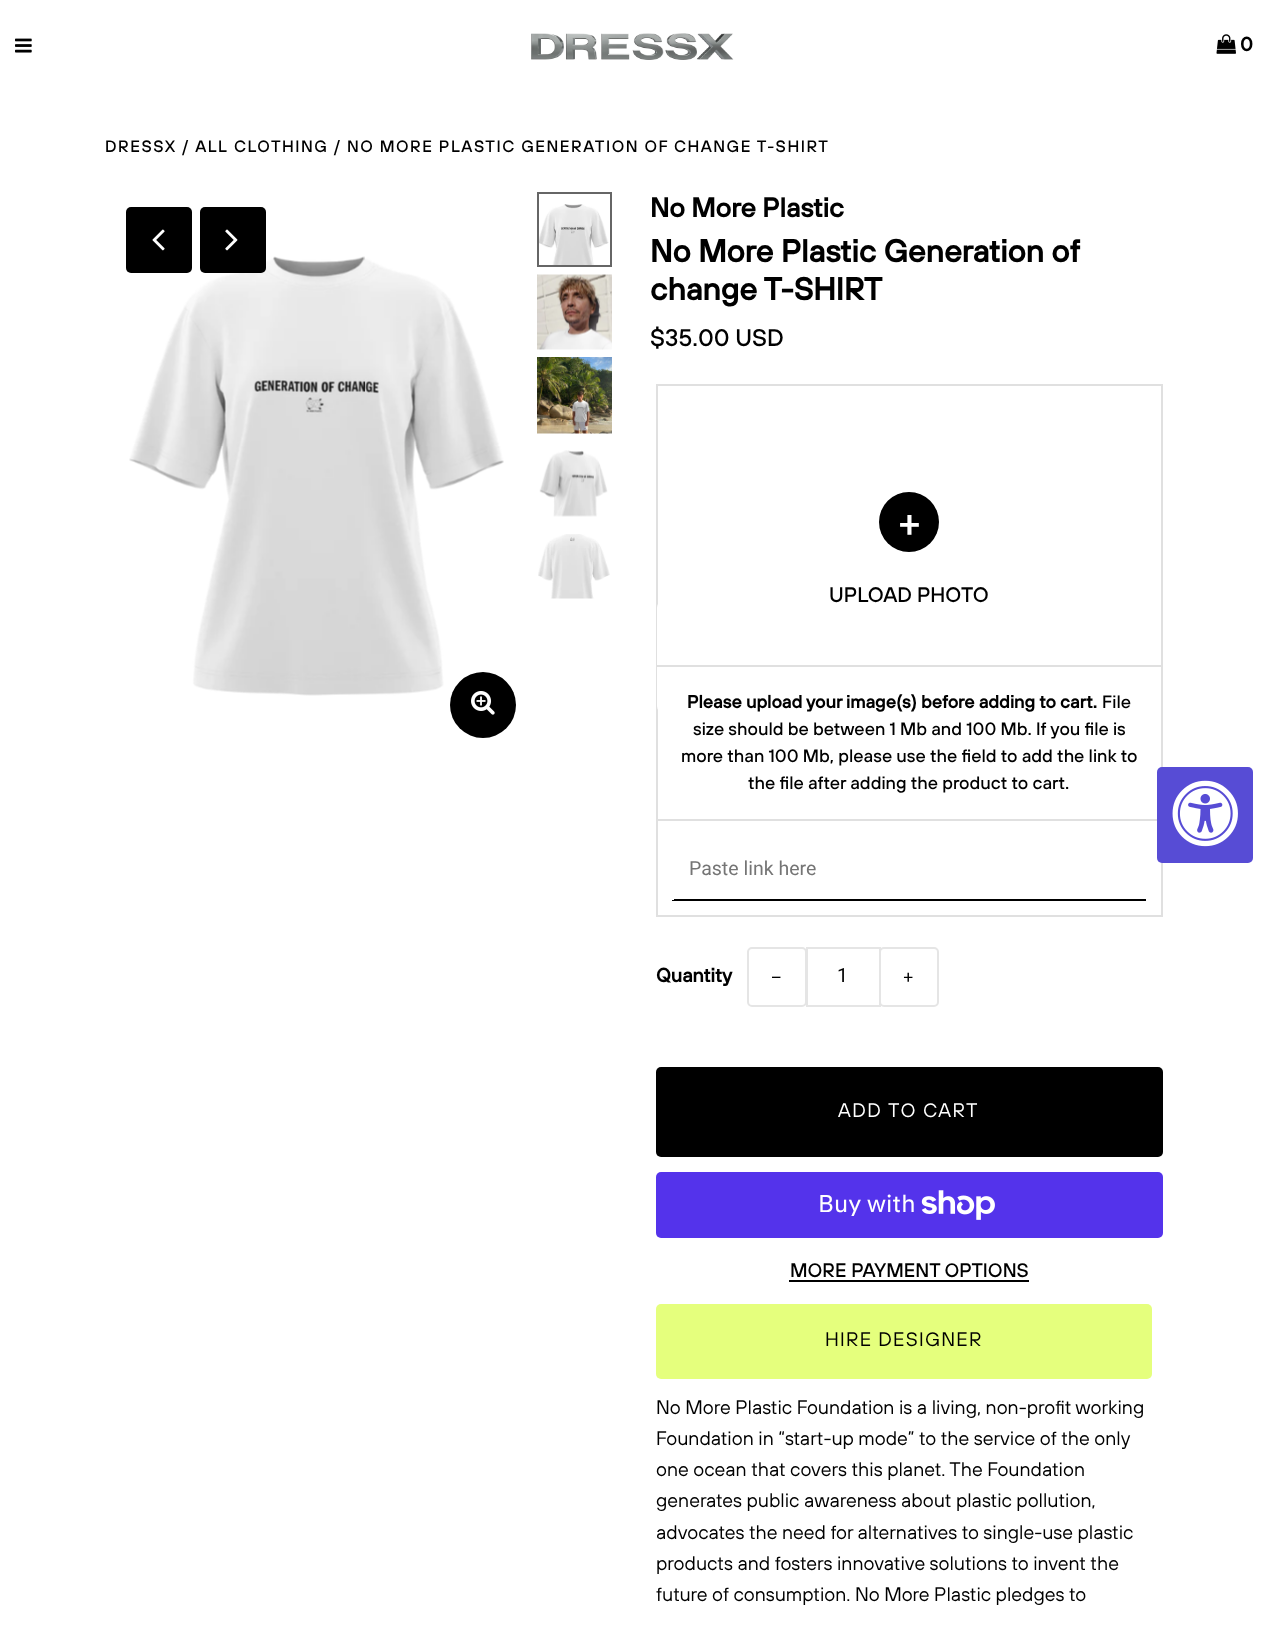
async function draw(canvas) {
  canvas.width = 1267;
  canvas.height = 1627;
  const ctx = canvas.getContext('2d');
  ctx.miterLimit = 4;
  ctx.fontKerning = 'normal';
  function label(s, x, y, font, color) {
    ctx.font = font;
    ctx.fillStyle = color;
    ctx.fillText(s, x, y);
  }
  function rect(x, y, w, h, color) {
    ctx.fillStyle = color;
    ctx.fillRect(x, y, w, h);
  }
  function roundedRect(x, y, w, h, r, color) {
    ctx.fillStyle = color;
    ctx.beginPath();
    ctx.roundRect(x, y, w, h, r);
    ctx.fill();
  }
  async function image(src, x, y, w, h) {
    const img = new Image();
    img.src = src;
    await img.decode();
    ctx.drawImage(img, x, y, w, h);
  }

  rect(0, 0, 1267, 1627, '#fff');
  await image('assets/img1.png', 15, 38, 17, 15);
  await image('assets/img2.png', 531, 33, 203, 27);
  await image('assets/img3.png', 1216, 34, 20, 20);
  label('0', 1240, 51, 'bold 19.5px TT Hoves', '#000');
  ctx.letterSpacing = '1.5px';
  label('DRESSX / ALL CLOTHING / NO MORE PLASTIC GENERATION OF CHANGE T-SHIRT', 105, 152, '500 16.5px TT Hoves', '#000');
  await image('assets/img6.png', 129, 256, 375, 440);
  roundedRect(126, 207, 66, 66, 5, '#000');
  await image('assets/img4.png', 152, 229, 13, 22);
  roundedRect(200, 207, 66, 66, 5, '#000');
  await image('assets/img5.png', 225, 229, 13, 22);
  ctx.beginPath();
  ctx.arc(483, 705, 33, 0, 2 * Math.PI);
  ctx.fill();
  await image('assets/img7.png', 471, 691, 24, 24);
  await image('assets/img8.png', 539, 204, 70, 61);
  ctx.strokeStyle = '#666';
  ctx.lineWidth = 2;
  ctx.strokeRect(538, 193, 73, 73);
  await image('assets/img9.png', 537, 274, 75, 76);
  await image('assets/img10.png', 537, 357, 75, 77);
  await image('assets/img11.png', 539, 450, 69, 67);
  await image('assets/img12.png', 538, 534, 72, 65);
  ctx.letterSpacing = '0px';
  label('No More Plastic', 650, 217, 'bold 27px TT Hoves', '#000');
  label('No More Plastic Generation of', 650, 262, 'bold 31.5px TT Hoves', '#000');
  label('change T-SHIRT', 650, 300, 'bold 31.5px TT Hoves', '#000');
  label('$35.00 USD', 650, 346, '500 24px TT Hoves', '#000');
  ctx.strokeStyle = '#e0e0e0';
  ctx.strokeRect(657, 385, 505, 531);
  ctx.beginPath();
  ctx.arc(909, 522, 30, 0, 2 * Math.PI);
  ctx.fill();
  label('+', 898, 537, '500 42px TT Hoves', '#fff');
  ctx.beginPath();
  ctx.roundRect(657, 600, 504, 12, [8, 8, 0, 0]);
  ctx.fill();
  label('UPLOAD PHOTO', 829, 602, '500 21px TT Hoves', '#000');
  rect(657, 612, 1, 90, '#fff');
  rect(657, 665, 504, 2, '#e0e0e0');
  rect(657, 819, 504, 2, '#e0e0e0');
  ctx.fillStyle = '#fff';
  ctx.beginPath();
  ctx.roundRect(657, 702, 504, 12, [0, 0, 8, 8]);
  ctx.fill();
  label('Please upload your image(s) before adding to cart.', 687, 708, 'bold 18px TT Hoves', '#000');
  label('File', 1102, 708, '500 18px TT Hoves', '#000');
  label('size should be between 1 Mb and 100 Mb. If you file is', 693, 735, '500 18px TT Hoves', '#000');
  label('more than 100 Mb, please use the field to add the link to', 681, 762, '500 18px TT Hoves', '#000');
  label('the file after adding the product to cart.', 748, 789, '500 18px TT Hoves', '#000');
  rect(672, 899, 474, 2, '#000');
  rect(672, 899, 2, 1, '#fff');
  label('Paste link here', 689, 875, '19.5px Roboto', '#757575');
  label('Quantity', 656, 982, 'bold 19.5px TT Hoves', '#000');
  ctx.beginPath();
  ctx.roundRect(748, 948, 58, 58, 4);
  ctx.strokeStyle = '#e5e5e5';
  ctx.stroke();
  ctx.letterSpacing = '1.5px';
  label('−', 771, 983, '19.5px TT Hoves', '#000');
  ctx.strokeRect(807, 948, 73, 58);
  ctx.letterSpacing = '0px';
  label('1', 837, 982, '19.5px Roboto', '#000');
  ctx.beginPath();
  ctx.roundRect(880, 948, 58, 58, 4);
  ctx.stroke();
  ctx.letterSpacing = '1.5px';
  label('+', 903, 983, '19.5px TT Hoves', '#000');
  roundedRect(656, 1067, 507, 90, 5, '#000');
  label('ADD TO CART', 838, 1117, '19.5px TT Hoves', '#fff');
  roundedRect(656, 1172, 507, 66, 5, '#5433eb');
  ctx.letterSpacing = '0px';
  label('Buy with', 818, 1212, '24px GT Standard', '#fff');
  await image('assets/img13.png', 921, 1190, 74, 30);
  label('MORE PAYMENT OPTIONS', 790, 1277, '500 19.5px TT Hoves', '#000');
  rect(789, 1280, 240, 2, '#000');
  roundedRect(656, 1304, 496, 75, 5, '#e5ff7d');
  ctx.letterSpacing = '1.25px';
  label('HIRE DESIGNER', 825, 1346, '19.5px TT Hoves', '#000');
  ctx.letterSpacing = '0px';
  label('No More Plastic Foundation is a living, non-profit working', 656, 1414, '19.5px TT Hoves', '#000');
  label('Foundation in “start-up mode” to the service of the only', 656, 1445, '19.5px TT Hoves', '#000');
  label('one ocean that covers this planet. The Foundation', 656, 1476, '19.5px TT Hoves', '#000');
  label('generates public awareness about plastic pollution,', 656, 1507, '19.5px TT Hoves', '#000');
  label('advocates the need for alternatives to single-use plastic', 656, 1539, '19.5px TT Hoves', '#000');
  label('products and fosters innovative solutions to invent the', 656, 1570, '19.5px TT Hoves', '#000');
  label('future of consumption. No More Plastic pledges to', 656, 1601, '19.5px TT Hoves', '#000');
  roundedRect(1157, 767, 96, 96, 5, '#574cd5');
  await image('assets/img14.png', 1172, 780, 66, 67);
}

draw(document.querySelector('canvas'));
